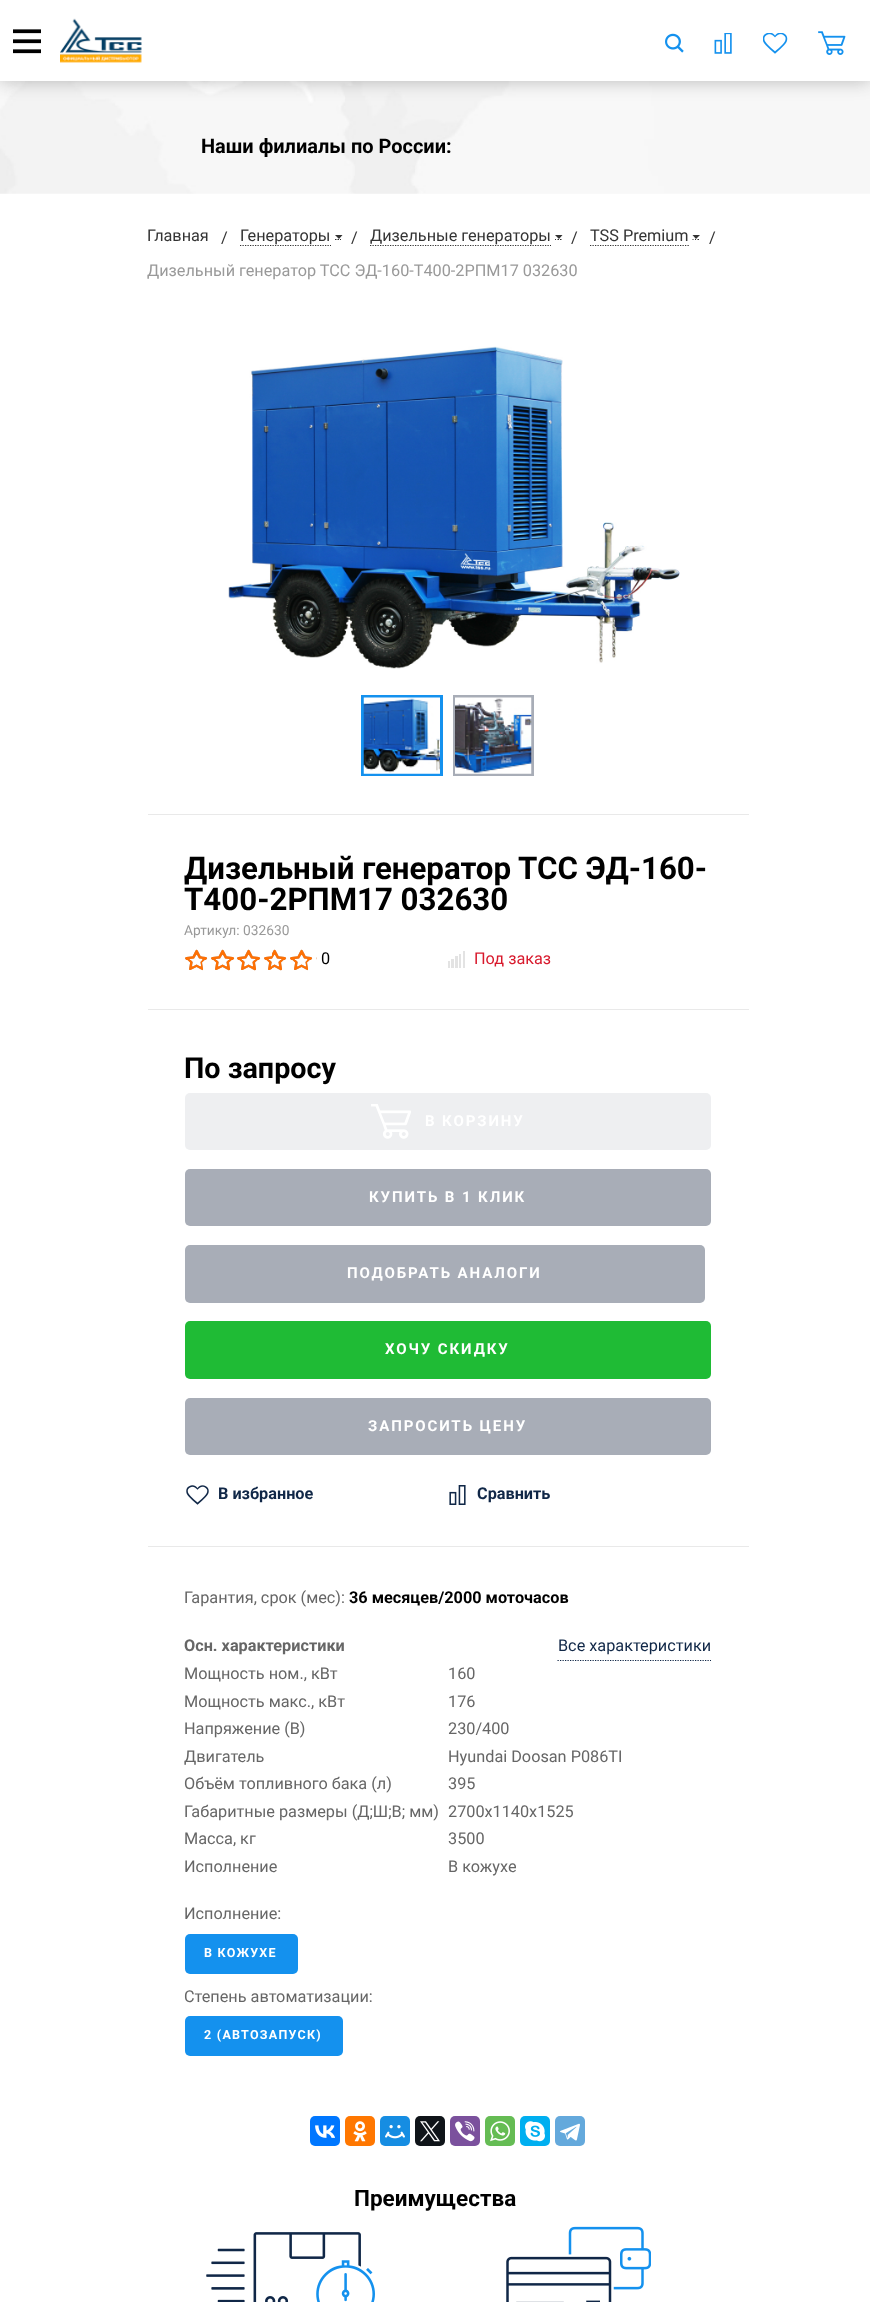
async function draw(canvas) {
  canvas.width = 870;
  canvas.height = 2302;
  const ctx = canvas.getContext('2d');
  ctx.miterLimit = 4;
  ctx.fontKerning = 'normal';
  function label(s, x, y, font, color) {
    ctx.font = font;
    ctx.fillStyle = color;
    ctx.fillText(s, x, y);
  }
  function rect(x, y, w, h, color) {
    ctx.fillStyle = color;
    ctx.fillRect(x, y, w, h);
  }
  function roundedRect(x, y, w, h, r, color) {
    ctx.fillStyle = color;
    ctx.beginPath();
    ctx.roundRect(x, y, w, h, r);
    ctx.fill();
  }
  async function image(src, x, y, w, h) {
    const img = new Image();
    img.src = src;
    await img.decode();
    ctx.drawImage(img, x, y, w, h);
  }
  let path;

  rect(0, 0, 870, 2302, '#fff');
  await image('assets/img7.png', 0, 81, 870, 113);
  ctx.fillStyle = '#05050526';
  ctx.filter = 'blur(9.5px)';
  ctx.beginPath();
  ctx.rect(0, 0, 870, 78);
  ctx.fill();
  ctx.filter = 'none';
  ctx.filter = 'blur(9.5px)';
  ctx.beginPath();
  ctx.rect(0, 0, 870, 81);
  ctx.fill();
  ctx.filter = 'none';
  rect(0, 0, 870, 81, '#fff');
  await image('assets/img1.png', 13, 29, 28, 25);
  await image('assets/img2.png', 60, 18, 82, 45);
  await image('assets/img3.png', 665, 33, 19, 20);
  await image('assets/img4.png', 714, 33, 18, 21);
  await image('assets/img5.png', 763, 33, 25, 21);
  await image('assets/img6.png', 818, 31, 28, 24);
  label('Наши филиалы по России:', 201, 153, 'bold 20px Roboto', '#000');
  label('Главная', 147, 241, '16.25px Roboto', '#333');
  label('/', 221, 243, '16.25px Roboto', '#333');
  path = new Path2D('M240 245.5H331');
  ctx.strokeStyle = '#333';
  ctx.lineWidth = 1.2;
  ctx.setLineDash([1.25, 1.25]);
  ctx.stroke(path);
  path = new Path2D('M335 239.5H336.5M337.5 239.5H339M340 239.5H341');
  ctx.setLineDash([]);
  ctx.stroke(path);
  label('Генераторы', 240, 241, '16.25px Roboto', '#333');
  path = new Path2D('M335 235H342.5L339 239Z');
  ctx.fill(path);
  label('/', 351, 243, '16.25px Roboto', '#333');
  path = new Path2D('M370 245.5H551');
  ctx.setLineDash([1.25, 1.25]);
  ctx.stroke(path);
  path = new Path2D('M555 239.5H556M557.5 239.5H559M560 239.5H561.5');
  ctx.setLineDash([]);
  ctx.stroke(path);
  label('Дизельные генераторы', 370, 241, '16.25px Roboto', '#333');
  path = new Path2D('M555 235H562.5L559 239Z');
  ctx.fill(path);
  label('/', 571, 243, '16.25px Roboto', '#333');
  path = new Path2D('M590 245.5H689');
  ctx.setLineDash([1.25, 1.25]);
  ctx.stroke(path);
  path = new Path2D('M692.5 239.5H693.5M695 239.5H696M697.5 239.5H699');
  ctx.setLineDash([]);
  ctx.stroke(path);
  label('TSS Premium', 590, 241, '16.25px Roboto', '#333');
  path = new Path2D('M692.5 235H700L696 239Z');
  ctx.fill(path);
  label('/', 709, 243, '16.25px Roboto', '#333');
  label('Дизельный генератор ТСС ЭД-160-Т400-2РПМ17 032630', 147, 276, '16.25px Roboto', '#999');
  rect(148, 814, 601, 1, '#e9e9e9');
  await image('assets/img8.png', 228, 346, 452, 323);
  ctx.strokeStyle = '#1491ee';
  ctx.lineWidth = 3;
  ctx.strokeRect(362.5, 696.5, 79, 78);
  await image('assets/img9.png', 363, 697, 77, 77);
  ctx.strokeStyle = '#a8adb7';
  ctx.strokeRect(454.5, 696.5, 78, 78);
  await image('assets/img10.png', 455, 697, 77, 77);
  rect(148, 1009, 601, 1, '#e9e9e9');
  label('Дизельный генератор ТСС ЭД-160-', 184, 879, 'bold 31.25px Roboto', '#000');
  label('Т400-2РПМ17 032630', 184, 910, 'bold 31.25px Roboto', '#000');
  label('Артикул: 032630', 184, 935, '13.75px Roboto', '#999');
  await image('assets/img11.png', 185, 949, 132, 22);
  await image('assets/img12.png', 185, 949, 132, 22);
  label('0', 321, 964, '16.25px Roboto', '#000');
  await image('assets/img13.png', 448, 951, 17, 17);
  label('Под заказ', 474, 964, '16.25px Roboto', '#d8192c');
  rect(148, 1546, 601, 1, '#e9e9e9');
  label('По запросу', 184, 1078, 'bold 28.75px Roboto', '#000');
  roundedRect(185, 1093, 526, 57, 5, '#eeeff1');
  await image('assets/img14.png', 371, 1104, 40, 35);
  ctx.letterSpacing = '1.9px';
  label('В КОРЗИНУ', 425, 1126, 'bold 15px Roboto', '#fff');
  roundedRect(185, 1169, 526, 57, 5, '#a8adb7');
  label('КУПИТЬ В 1 КЛИК', 369, 1202, 'bold 15px Roboto', '#fff');
  roundedRect(185, 1245, 520, 58, 5, '#a8adb7');
  label('ПОДОБРАТЬ АНАЛОГИ', 347, 1278, 'bold 15px Roboto', '#fff');
  roundedRect(185, 1321, 526, 58, 5, '#1fbb35');
  label('ХОЧУ СКИДКУ', 385, 1354, 'bold 15px Roboto', '#fff');
  roundedRect(185, 1398, 526, 57, 5, '#a8adb7');
  label('ЗАПРОСИТЬ ЦЕНУ', 368, 1431, 'bold 15px Roboto', '#fff');
  await image('assets/img15.png', 186, 1485, 23, 20);
  ctx.letterSpacing = '0px';
  label('В избранное', 218, 1499, 'bold 16.25px Roboto', '#102747');
  await image('assets/img16.png', 449, 1485, 17, 20);
  label('Сравнить', 477, 1499, 'bold 16.25px Roboto', '#102747');
  label('Гарантия, срок (мес):', 184, 1603, '16.25px Roboto', '#666');
  label('36 месяцев/2000 моточасов', 349, 1603, 'bold 16.25px Roboto', '#000');
  label('Осн. характеристики', 184, 1651, 'bold 16.25px Roboto', '#666');
  path = new Path2D('M557.5 1660.5H711');
  ctx.strokeStyle = '#102747';
  ctx.lineWidth = 1.2;
  ctx.setLineDash([1.25, 1.25]);
  ctx.stroke(path);
  label('Все характеристики', 558, 1651, '16.25px Roboto', '#102747');
  label('Мощность ном., кВт', 184, 1679, '16.25px Roboto', '#666');
  label('160', 448, 1679, '16.25px Roboto', '#666');
  label('Мощность макс., кВт', 184, 1707, '16.25px Roboto', '#666');
  label('176', 448, 1707, '16.25px Roboto', '#666');
  label('Напряжение (В)', 184, 1734, '16.25px Roboto', '#666');
  label('230/400', 448, 1734, '16.25px Roboto', '#666');
  label('Двигатель', 184, 1762, '16.25px Roboto', '#666');
  label('Hyundai Doosan P086TI', 448, 1762, '16.25px Roboto', '#666');
  label('Объём топливного бака (л)', 184, 1789, '16.25px Roboto', '#666');
  label('395', 448, 1789, '16.25px Roboto', '#666');
  label('Габаритные размеры (Д;Ш;В; мм)', 184, 1817, '16.25px Roboto', '#666');
  label('2700x1140x1525', 448, 1817, '16.25px Roboto', '#666');
  label('Масса, кг', 184, 1844, '16.25px Roboto', '#666');
  label('3500', 448, 1844, '16.25px Roboto', '#666');
  label('Исполнение', 184, 1872, '16.25px Roboto', '#666');
  label('В кожухе', 448, 1872, '16.25px Roboto', '#666');
  label('Исполнение:', 184, 1919, '16.25px Roboto', '#666');
  roundedRect(185, 1934, 113, 40, 5, '#1491ee');
  ctx.letterSpacing = '1.25px';
  label('В КОЖУХЕ', 204, 1957, 'bold 12.5px Roboto', '#fff');
  ctx.letterSpacing = '0px';
  label('Степень автоматизации:', 184, 2002, '16.25px Roboto', '#666');
  roundedRect(185, 2016, 158, 40, 5, '#1491ee');
  ctx.letterSpacing = '1.25px';
  label('2 (АВТОЗАПУСК)', 204, 2039, 'bold 12.5px Roboto', '#fff');
  roundedRect(310, 2116, 30, 30, 5, '#07f');
  await image('assets/img17.png', 315, 2125, 20, 13);
  roundedRect(345, 2116, 30, 30, 5, '#f70');
  await image('assets/img18.png', 353, 2121, 14, 21);
  roundedRect(380, 2116, 30, 30, 5, '#168de2');
  await image('assets/img19.png', 385, 2125, 20, 14);
  roundedRect(415, 2116, 30, 30, 5, '#0f1419');
  await image('assets/img20.png', 420, 2121, 20, 21);
  roundedRect(450, 2116, 30, 30, 5, '#7b519d');
  await image('assets/img21.png', 455, 2121, 20, 21);
  roundedRect(485, 2116, 30, 30, 5, '#65bc54');
  await image('assets/img22.png', 490, 2121, 20, 21);
  roundedRect(520, 2116, 30, 30, 5, '#00aff0');
  await image('assets/img23.png', 525, 2121, 20, 21);
  roundedRect(555, 2116, 30, 30, 5, '#64a9dc');
  await image('assets/img24.png', 560, 2123, 20, 18);
  ctx.letterSpacing = '0px';
  label('Преимущества', 354, 2206, 'bold 22.5px Roboto', '#000');
  await image('assets/img25.png', 206, 2232, 169, 70);
  await image('assets/img26.png', 506, 2226, 145, 76);
}

draw(document.querySelector('canvas'));
